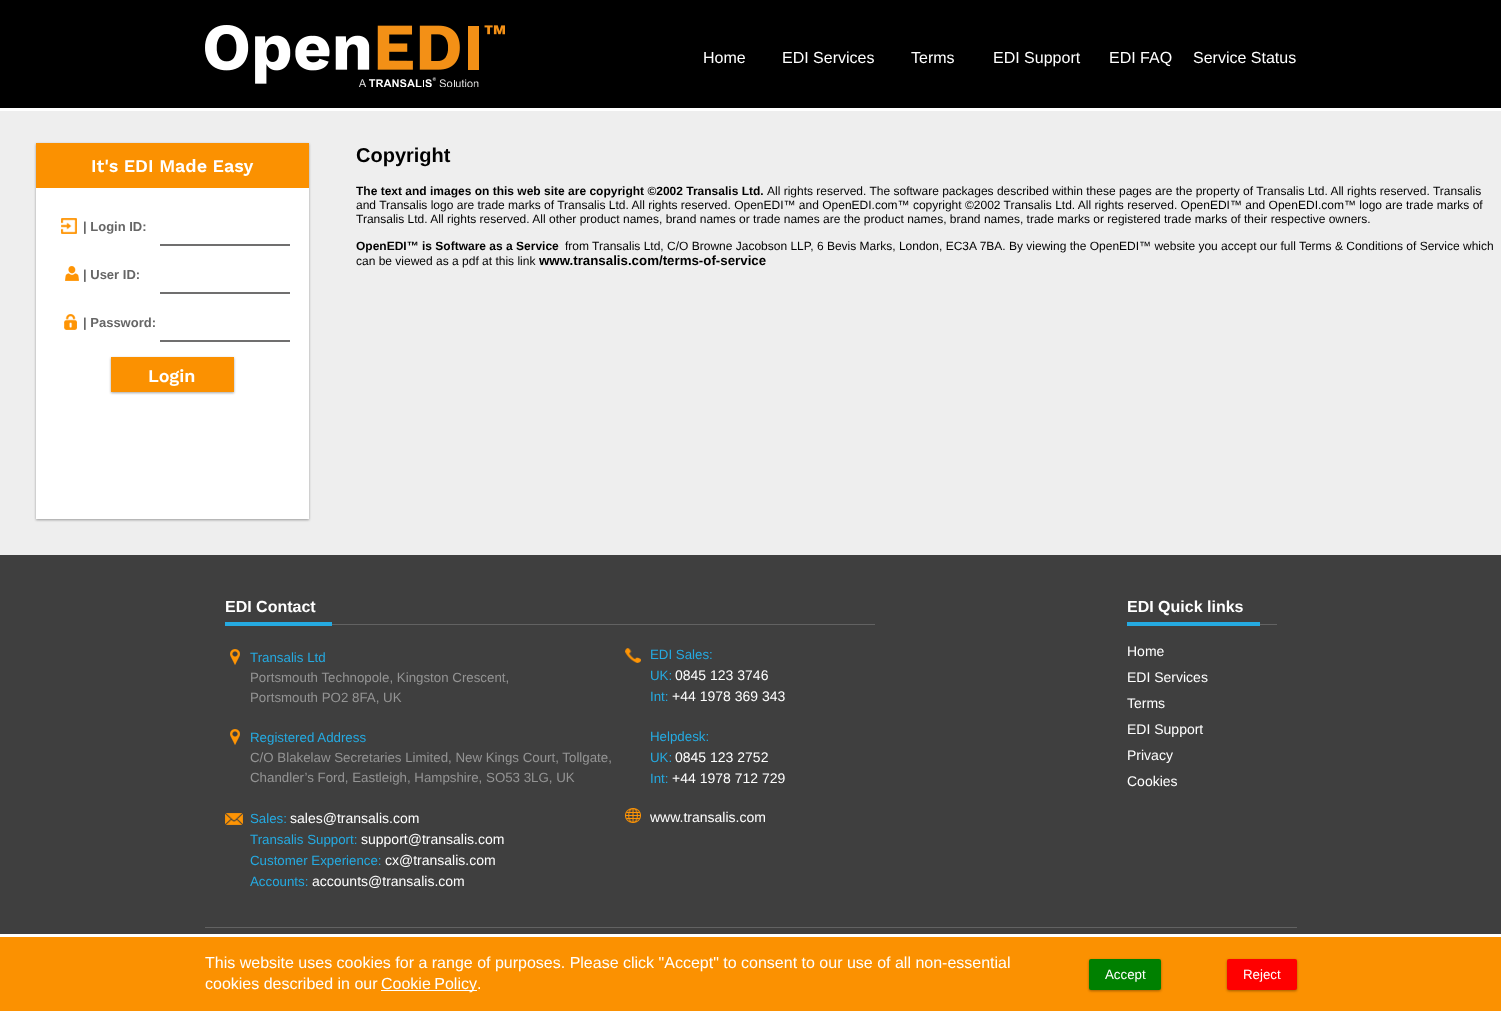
async function draw(canvas) {
  canvas.width = 1501;
  canvas.height = 1011;
  const ctx = canvas.getContext('2d');
  ctx.miterLimit = 4;
  ctx.fontKerning = 'normal';
  function label(s, x, y, font, color) {
    ctx.font = font;
    ctx.fillStyle = color;
    ctx.fillText(s, x, y);
  }
  function rect(x, y, w, h, color) {
    ctx.fillStyle = color;
    ctx.fillRect(x, y, w, h);
  }
  function roundedRect(x, y, w, h, r, color) {
    ctx.fillStyle = color;
    ctx.beginPath();
    ctx.roundRect(x, y, w, h, r);
    ctx.fill();
  }
  async function image(src, x, y, w, h) {
    const img = new Image();
    img.src = src;
    await img.decode();
    ctx.drawImage(img, x, y, w, h);
  }

  rect(0, 0, 1501, 1011, '#000');
  rect(0, 108, 1501, 3, '#fff');
  await image('assets/img1.png', 205, 25, 300, 62);
  label('Home', 703, 63, '16px Liberation Sans', '#fff');
  label('EDI Services', 782, 63, '16px Liberation Sans', '#fff');
  label('Terms', 911, 63, '16px Liberation Sans', '#fff');
  label('EDI Support', 993, 63, '16px Liberation Sans', '#fff');
  label('EDI FAQ', 1109, 63, '16px Liberation Sans', '#fff');
  label('Service Status', 1193, 63, '16px Liberation Sans', '#fff');
  rect(0, 111, 1501, 444, '#eee');
  ctx.fillStyle = '#0000003d';
  ctx.filter = 'blur(1px)';
  ctx.beginPath();
  ctx.rect(36, 144, 273, 376);
  ctx.fill();
  ctx.filter = 'none';
  ctx.fillStyle = '#0000001f';
  ctx.filter = 'blur(1.5px)';
  ctx.beginPath();
  ctx.rect(36, 144, 273, 376);
  ctx.fill();
  ctx.filter = 'none';
  rect(36, 188, 273, 331, '#fff');
  rect(36, 143, 273, 45, '#fb9101');
  label('It\'s EDI Made Easy', 91, 172, '600 18px Work Sans', '#fff');
  await image('assets/img2.png', 61, 218, 16, 16);
  label('| Login ID:', 83, 231, 'bold 13px Liberation Sans', '#666');
  rect(160, 244, 130, 2, '#706f6f');
  await image('assets/img3.png', 65, 266, 14, 15);
  label('| User ID:', 83, 279, 'bold 13px Liberation Sans', '#666');
  rect(160, 292, 130, 2, '#706f6f');
  await image('assets/img4.png', 64, 314, 13, 16);
  label('| Password:', 83, 327, 'bold 13px Liberation Sans', '#666');
  rect(160, 340, 130, 2, '#706f6f');
  ctx.fillStyle = '#0000003d';
  ctx.filter = 'blur(1px)';
  ctx.beginPath();
  ctx.rect(111, 358, 123, 35);
  ctx.fill();
  ctx.filter = 'none';
  ctx.fillStyle = '#0000001f';
  ctx.filter = 'blur(1.5px)';
  ctx.beginPath();
  ctx.rect(111, 358, 123, 35);
  ctx.fill();
  ctx.filter = 'none';
  rect(111, 357, 123, 35, '#fb9101');
  label('Login', 148, 382, '600 18px Work Sans', '#fff');
  label('Copyright', 356, 162, 'bold 20px Liberation Sans', '#000');
  label('The text and images on this web site are copyright ©2002 Transalis Ltd.', 356, 195, 'bold 12px Liberation Sans', '#000');
  label('All rights reserved. The software packages described within these pages are the property of Transalis Ltd. All rights reserved. Transalis', 767, 195, '12px Liberation Sans', '#000');
  label('and Transalis logo are trade marks of Transalis Ltd. All rights reserved. OpenEDI™ and OpenEDI.com™ copyright ©2002 Transalis Ltd. All rights reserved. OpenEDI™ and OpenEDI.com™ logo are trade marks of', 356, 209, '12px Liberation Sans', '#000');
  label('Transalis Ltd. All rights reserved. All other product names, brand names or trade names are the product names, brand names, trade marks or registered trade marks of their respective owners.', 356, 223, '12px Liberation Sans', '#000');
  label('OpenEDI™ is Software as a Service', 356, 250, 'bold 12px Liberation Sans', '#000');
  label('from Transalis Ltd, C/O Browne Jacobson LLP, 6 Bevis Marks, London, EC3A 7BA. By viewing the OpenEDI™ website you accept our full Terms & Conditions of Service which', 565, 250, '12px Liberation Sans', '#000');
  label('can be viewed as a pdf at this link', 356, 265, '12px Liberation Sans', '#000');
  label('www.transalis.com/terms-of-service', 539, 265, 'bold 13.3px Liberation Sans', '#000');
  rect(0, 937, 1501, 74, '#fb9101');
  rect(0, 934, 1501, 3, '#fff');
  label('This website uses cookies for a range of purposes. Please click "Accept" to consent to our use of all non-essential', 205, 968, '16px Liberation Sans', '#fff');
  label('cookies described in our', 205, 989, '16px Liberation Sans', '#fff');
  rect(381, 990, 96, 1, '#fff');
  ctx.wordSpacing = '-1px';
  label('Cookie Policy', 381, 989, '16px Liberation Sans', '#fff');
  ctx.wordSpacing = '0px';
  label('.', 477, 989, '16px Liberation Sans', '#fff');
  ctx.fillStyle = '#0000003d';
  ctx.filter = 'blur(1px)';
  ctx.beginPath();
  ctx.roundRect(1089, 960, 72, 31, 2);
  ctx.fill();
  ctx.filter = 'none';
  ctx.fillStyle = '#0000001f';
  ctx.filter = 'blur(1.5px)';
  ctx.beginPath();
  ctx.roundRect(1089, 960, 72, 31, 2);
  ctx.fill();
  ctx.filter = 'none';
  roundedRect(1089, 959, 72, 31, 2, '#008000');
  label('Accept', 1105, 979, '13.3px Liberation Sans', '#fff');
  ctx.fillStyle = '#0000003d';
  ctx.filter = 'blur(1px)';
  ctx.beginPath();
  ctx.roundRect(1227, 960, 70, 31, 2);
  ctx.fill();
  ctx.filter = 'none';
  ctx.fillStyle = '#0000001f';
  ctx.filter = 'blur(1.5px)';
  ctx.beginPath();
  ctx.roundRect(1227, 960, 70, 31, 2);
  ctx.fill();
  ctx.filter = 'none';
  roundedRect(1227, 959, 70, 31, 2, '#f00');
  label('Reject', 1243, 979, '13.3px Liberation Sans', '#fff');
  rect(0, 555, 1501, 379, '#3f3f3f');
  rect(332, 624, 543, 1, '#626262');
  label('EDI Contact', 225, 612, 'bold 16px Liberation Sans', '#fff');
  rect(225, 622, 107, 4, '#25aae1');
  await image('assets/img5.png', 230, 649, 10, 16);
  label('Transalis Ltd', 250, 662, '13.3px Liberation Sans', '#25aae1');
  label('Portsmouth Technopole, Kingston Crescent,', 250, 682, '13.3px Liberation Sans', '#949494');
  label('Portsmouth PO2 8FA, UK', 250, 702, '13.3px Liberation Sans', '#949494');
  await image('assets/img6.png', 625, 648, 16, 15);
  label('EDI Sales:', 650, 659, '13.3px Liberation Sans', '#25aae1');
  label('UK:', 650, 680, '13.3px Liberation Sans', '#25aae1');
  label('0845 123 3746', 675, 680, '14px Liberation Sans', '#fff');
  label('Int:', 650, 701, '13.3px Liberation Sans', '#25aae1');
  label('+44 1978 369 343', 672, 701, '14px Liberation Sans', '#fff');
  label('Helpdesk:', 650, 741, '13.3px Liberation Sans', '#25aae1');
  label('UK:', 650, 762, '13.3px Liberation Sans', '#25aae1');
  label('0845 123 2752', 675, 762, '14px Liberation Sans', '#fff');
  label('Int:', 650, 783, '13.3px Liberation Sans', '#25aae1');
  label('+44 1978 712 729', 672, 783, '14px Liberation Sans', '#fff');
  await image('assets/img5.png', 230, 729, 10, 16);
  label('Registered Address', 250, 742, '13.3px Liberation Sans', '#25aae1');
  label('C/O Blakelaw Secretaries Limited, New Kings Court, Tollgate,', 250, 762, '13.3px Liberation Sans', '#949494');
  label('Chandler’s Ford, Eastleigh, Hampshire, SO53 3LG, UK', 250, 782, '13.3px Liberation Sans', '#949494');
  await image('assets/img7.png', 225, 813, 18, 12);
  label('Sales:', 250, 823, '13.3px Liberation Sans', '#25aae1');
  label('sales@transalis.com', 290, 823, '14px Liberation Sans', '#fff');
  label('Transalis Support:', 250, 844, '13.3px Liberation Sans', '#25aae1');
  label('support@transalis.com', 361, 844, '14px Liberation Sans', '#fff');
  label('Customer Experience:', 250, 865, '13.3px Liberation Sans', '#25aae1');
  label('cx@transalis.com', 385, 865, '14px Liberation Sans', '#fff');
  label('Accounts:', 250, 886, '13.3px Liberation Sans', '#25aae1');
  label('accounts@transalis.com', 312, 886, '14px Liberation Sans', '#fff');
  await image('assets/img8.png', 625, 808, 16, 15);
  label('www.transalis.com', 650, 822, '14px Liberation Sans', '#fff');
  rect(1260, 624, 17, 1, '#626262');
  label('EDI Quick links', 1127, 612, 'bold 16px Liberation Sans', '#fff');
  rect(1127, 622, 133, 4, '#25aae1');
  label('Home', 1127, 656, '14px Liberation Sans', '#fff');
  label('EDI Services', 1127, 682, '14px Liberation Sans', '#fff');
  label('Terms', 1127, 708, '14px Liberation Sans', '#fff');
  label('EDI Support', 1127, 734, '14px Liberation Sans', '#fff');
  label('Privacy', 1127, 760, '14px Liberation Sans', '#fff');
  label('Cookies', 1127, 786, '14px Liberation Sans', '#fff');
  rect(205, 927, 1092, 1, '#626262');
}

draw(document.querySelector('canvas'));
